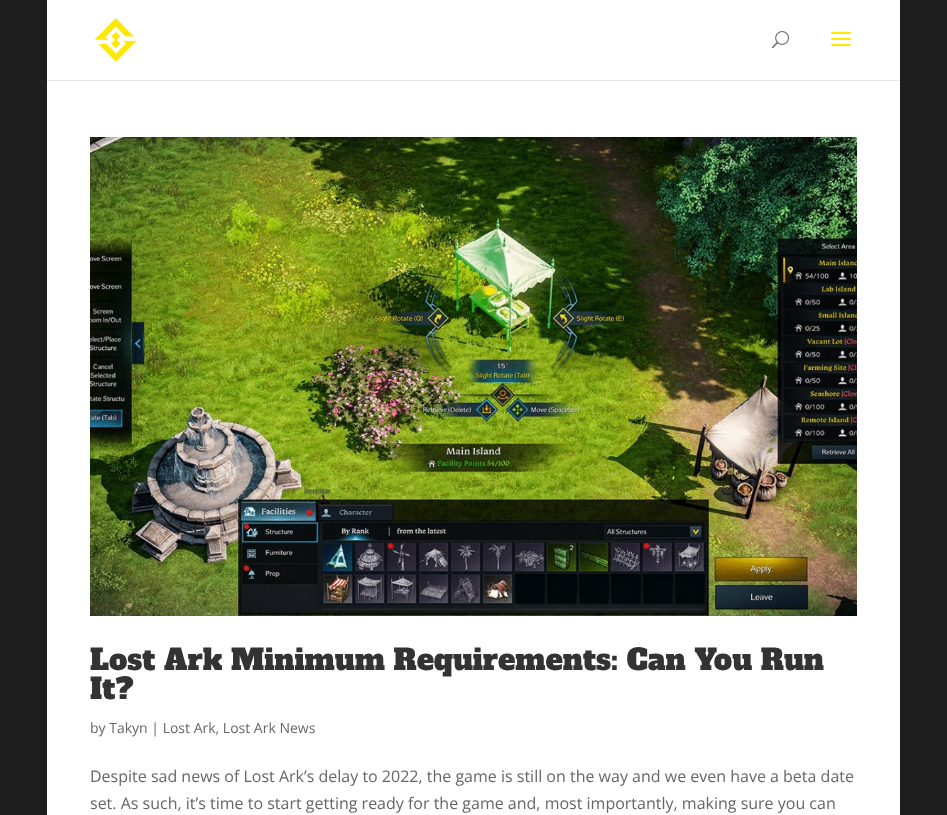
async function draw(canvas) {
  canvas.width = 947;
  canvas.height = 815;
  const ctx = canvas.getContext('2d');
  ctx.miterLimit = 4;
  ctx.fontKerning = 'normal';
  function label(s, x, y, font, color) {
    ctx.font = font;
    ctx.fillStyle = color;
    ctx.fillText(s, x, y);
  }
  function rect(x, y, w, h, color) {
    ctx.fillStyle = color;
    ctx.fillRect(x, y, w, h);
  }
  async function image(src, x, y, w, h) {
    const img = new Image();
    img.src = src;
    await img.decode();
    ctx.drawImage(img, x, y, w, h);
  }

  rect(0, 0, 947, 815, '#1e1e1e');
  rect(47, 80, 853, 1, '#e6e6e6');
  rect(47, 0, 853, 80, '#fff');
  await image('assets/img1.png', 94, 18, 43, 44);
  await image('assets/img2.png', 772, 31, 17, 18);
  await image('assets/img3.png', 831, 32, 20, 14);
  rect(47, 81, 853, 734, '#fff');
  await image('assets/img4.png', 90, 137, 767, 479);
  label('Lost Ark Minimum Requirements: Can You Run', 90, 670, '29px Alfa Slab One', '#333');
  label('It?', 90, 699, '29px Alfa Slab One', '#333');
  label('by Takyn | Lost Ark, Lost Ark News', 90, 733, '14px Open Sans', '#666');
  label('Despite sad news of Lost Ark’s delay to 2022, the game is still on the way and we even have a beta date', 90, 782, '16px Open Sans', '#666');
  label('set. As such, it’s time to start getting ready for the game and, most importantly, making sure you can', 90, 809, '16px Open Sans', '#666');
}

draw(document.querySelector('canvas'));
